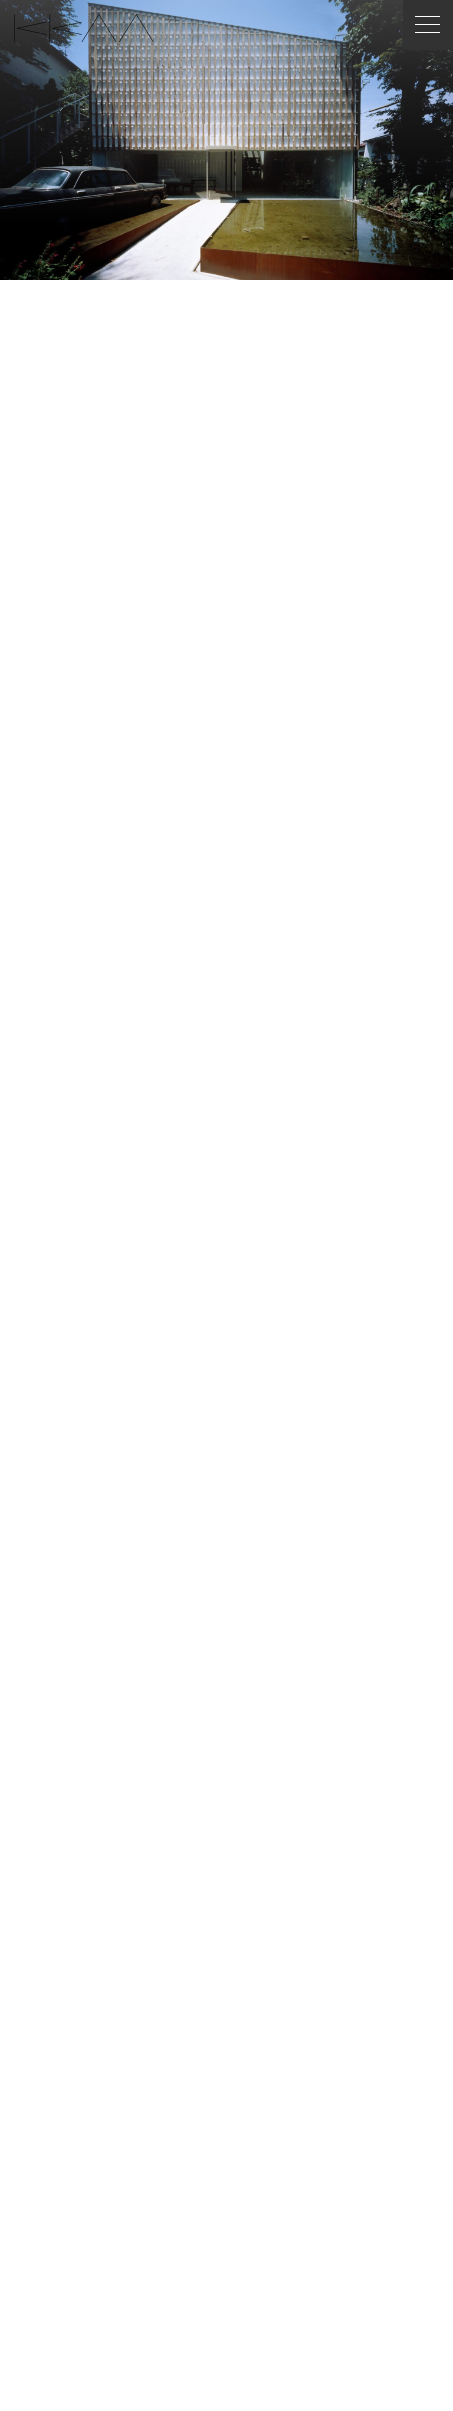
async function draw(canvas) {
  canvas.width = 453;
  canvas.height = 2411;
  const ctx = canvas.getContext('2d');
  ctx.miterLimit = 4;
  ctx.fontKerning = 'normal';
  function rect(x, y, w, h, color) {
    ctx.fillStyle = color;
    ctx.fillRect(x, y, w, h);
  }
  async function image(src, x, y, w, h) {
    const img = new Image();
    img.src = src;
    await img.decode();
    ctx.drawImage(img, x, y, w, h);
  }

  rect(0, 0, 453, 2411, '#fff');
  await image('assets/img1.png', 0, 0, 453, 280);
  await image('assets/img2.png', 14, 14, 140, 28);
  rect(403, 0, 50, 50, '#323232');
  rect(415, 16, 25, 1, '#fff');
  rect(415, 24, 25, 1, '#fff');
  rect(415, 32, 25, 1, '#fff');
}

draw(document.querySelector('canvas'));
